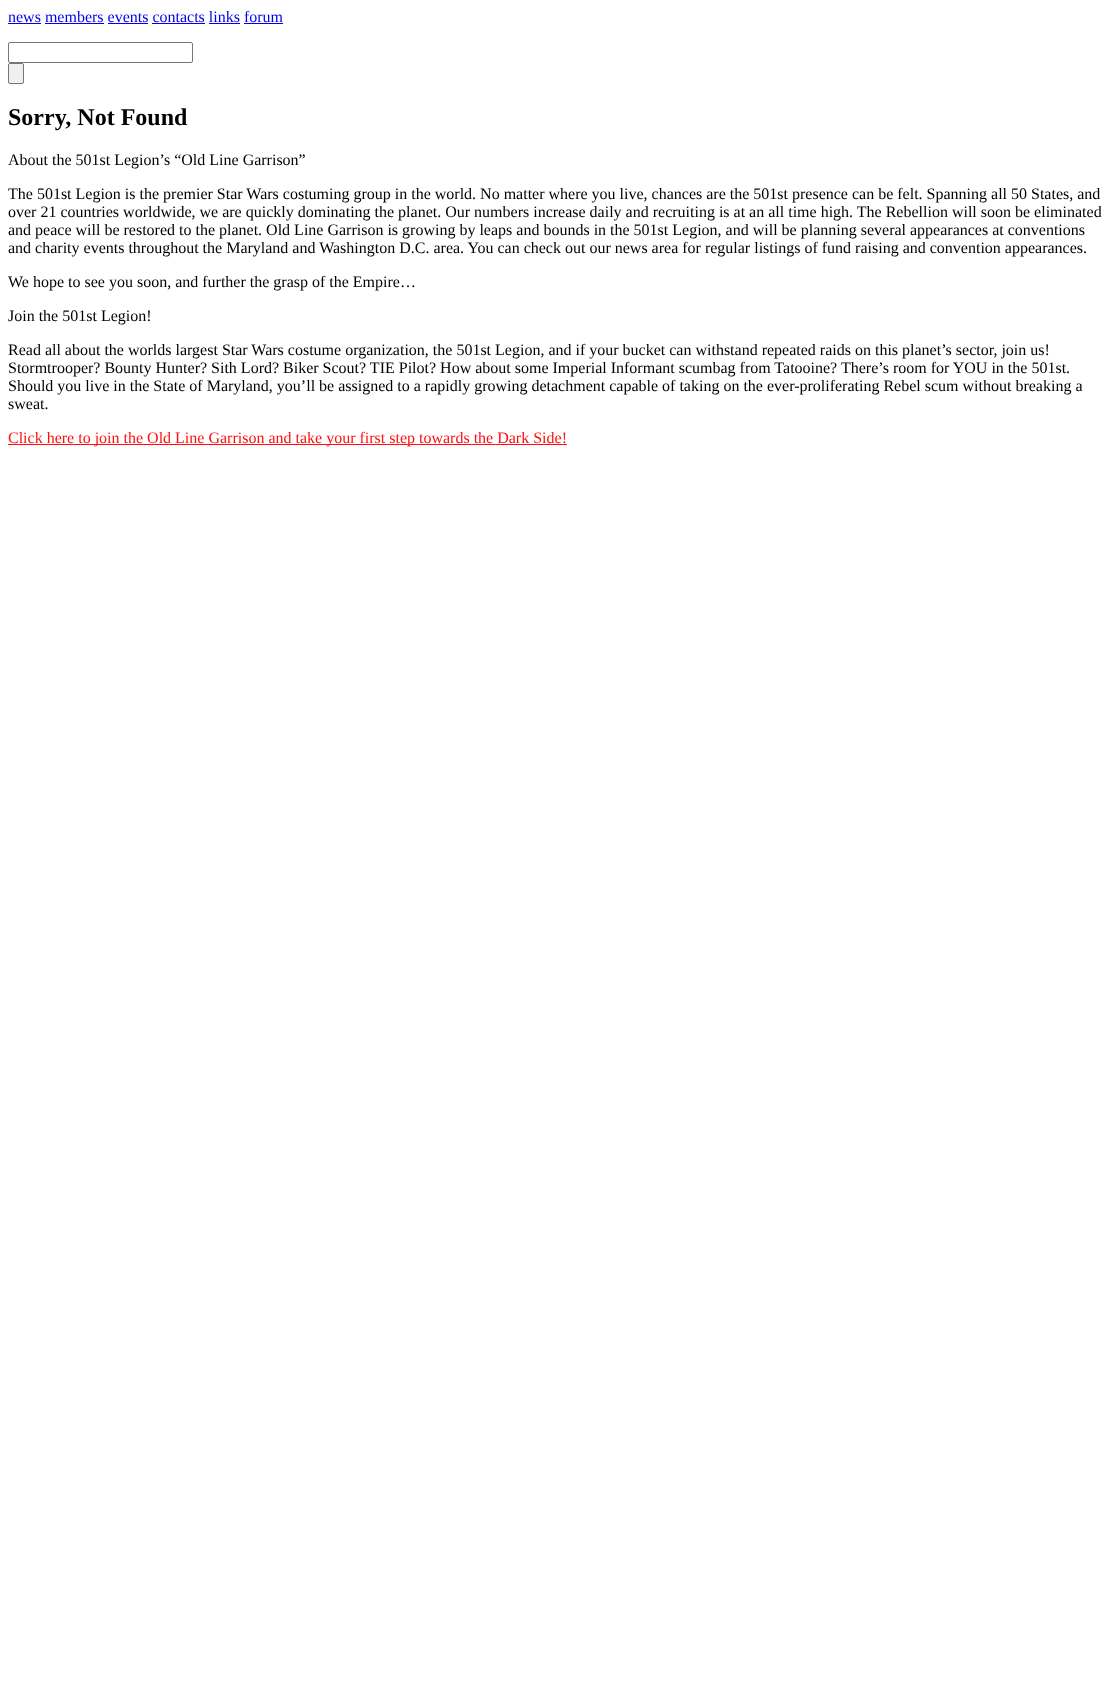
async function draw(canvas) {
  canvas.width = 1115;
  canvas.height = 1685;
  const ctx = canvas.getContext('2d');
  ctx.miterLimit = 4;
  ctx.fontKerning = 'normal';
  function label(s, x, y, font, color) {
    ctx.font = font;
    ctx.fillStyle = color;
    ctx.fillText(s, x, y);
  }
  function rect(x, y, w, h, color) {
    ctx.fillStyle = color;
    ctx.fillRect(x, y, w, h);
  }

  rect(0, 0, 1115, 1685, '#fff');
  label('news members events contacts links forum', 8, 22, '16px Liberation Serif', '#00e');
  rect(8, 23, 33, 1, '#00e');
  rect(45, 23, 59, 1, '#00e');
  rect(108, 23, 40, 1, '#00e');
  rect(152, 23, 53, 1, '#00e');
  rect(209, 23, 31, 1, '#00e');
  rect(244, 23, 39, 1, '#00e');
  ctx.beginPath();
  ctx.roundRect(8.5, 42.5, 184, 20, 1.5);
  ctx.strokeStyle = '#767676';
  ctx.stroke();
  ctx.fillStyle = '#efefef';
  ctx.beginPath();
  ctx.roundRect(8.5, 63.5, 15, 20, 1.5);
  ctx.fill();
  ctx.stroke();
  label('Sorry, Not Found', 8, 125, 'bold 24px Liberation Serif', '#000');
  label('About the 501st Legion’s “Old Line Garrison”', 8, 165, '16px Liberation Serif', '#000');
  label('The 501st Legion is the premier Star Wars costuming group in the world. No matter where you live, chances are the 501st presence can be felt. Spanning all 50 States, and', 8, 199, '16px Liberation Serif', '#000');
  label('over 21 countries worldwide, we are quickly dominating the planet. Our numbers increase daily and recruiting is at an all time high. The Rebellion will soon be eliminated', 8, 217, '16px Liberation Serif', '#000');
  label('and peace will be restored to the planet. Old Line Garrison is growing by leaps and bounds in the 501st Legion, and will be planning several appearances at conventions', 8, 235, '16px Liberation Serif', '#000');
  label('and charity events throughout the Maryland and Washington D.C. area. You can check out our news area for regular listings of fund raising and convention appearances.', 8, 253, '16px Liberation Serif', '#000');
  label('We hope to see you soon, and further the grasp of the Empire…', 8, 287, '16px Liberation Serif', '#000');
  label('Join the 501st Legion!', 8, 321, '16px Liberation Serif', '#000');
  label('Read all about the worlds largest Star Wars costume organization, the 501st Legion, and if your bucket can withstand repeated raids on this planet’s sector, join us!', 8, 355, '16px Liberation Serif', '#000');
  label('Stormtrooper? Bounty Hunter? Sith Lord? Biker Scout? TIE Pilot? How about some Imperial Informant scumbag from Tatooine? There’s room for YOU in the 501st.', 8, 373, '16px Liberation Serif', '#000');
  label('Should you live in the State of Maryland, you’ll be assigned to a rapidly growing detachment capable of taking on the ever-proliferating Rebel scum without breaking a', 8, 391, '16px Liberation Serif', '#000');
  label('sweat.', 8, 409, '16px Liberation Serif', '#000');
  rect(8, 444, 559, 1, '#ff0f0f');
  label('Click here to join the Old Line Garrison and take your first step towards the Dark Side!', 8, 443, '16px Liberation Serif', '#ff0f0f');
}

draw(document.querySelector('canvas'));
